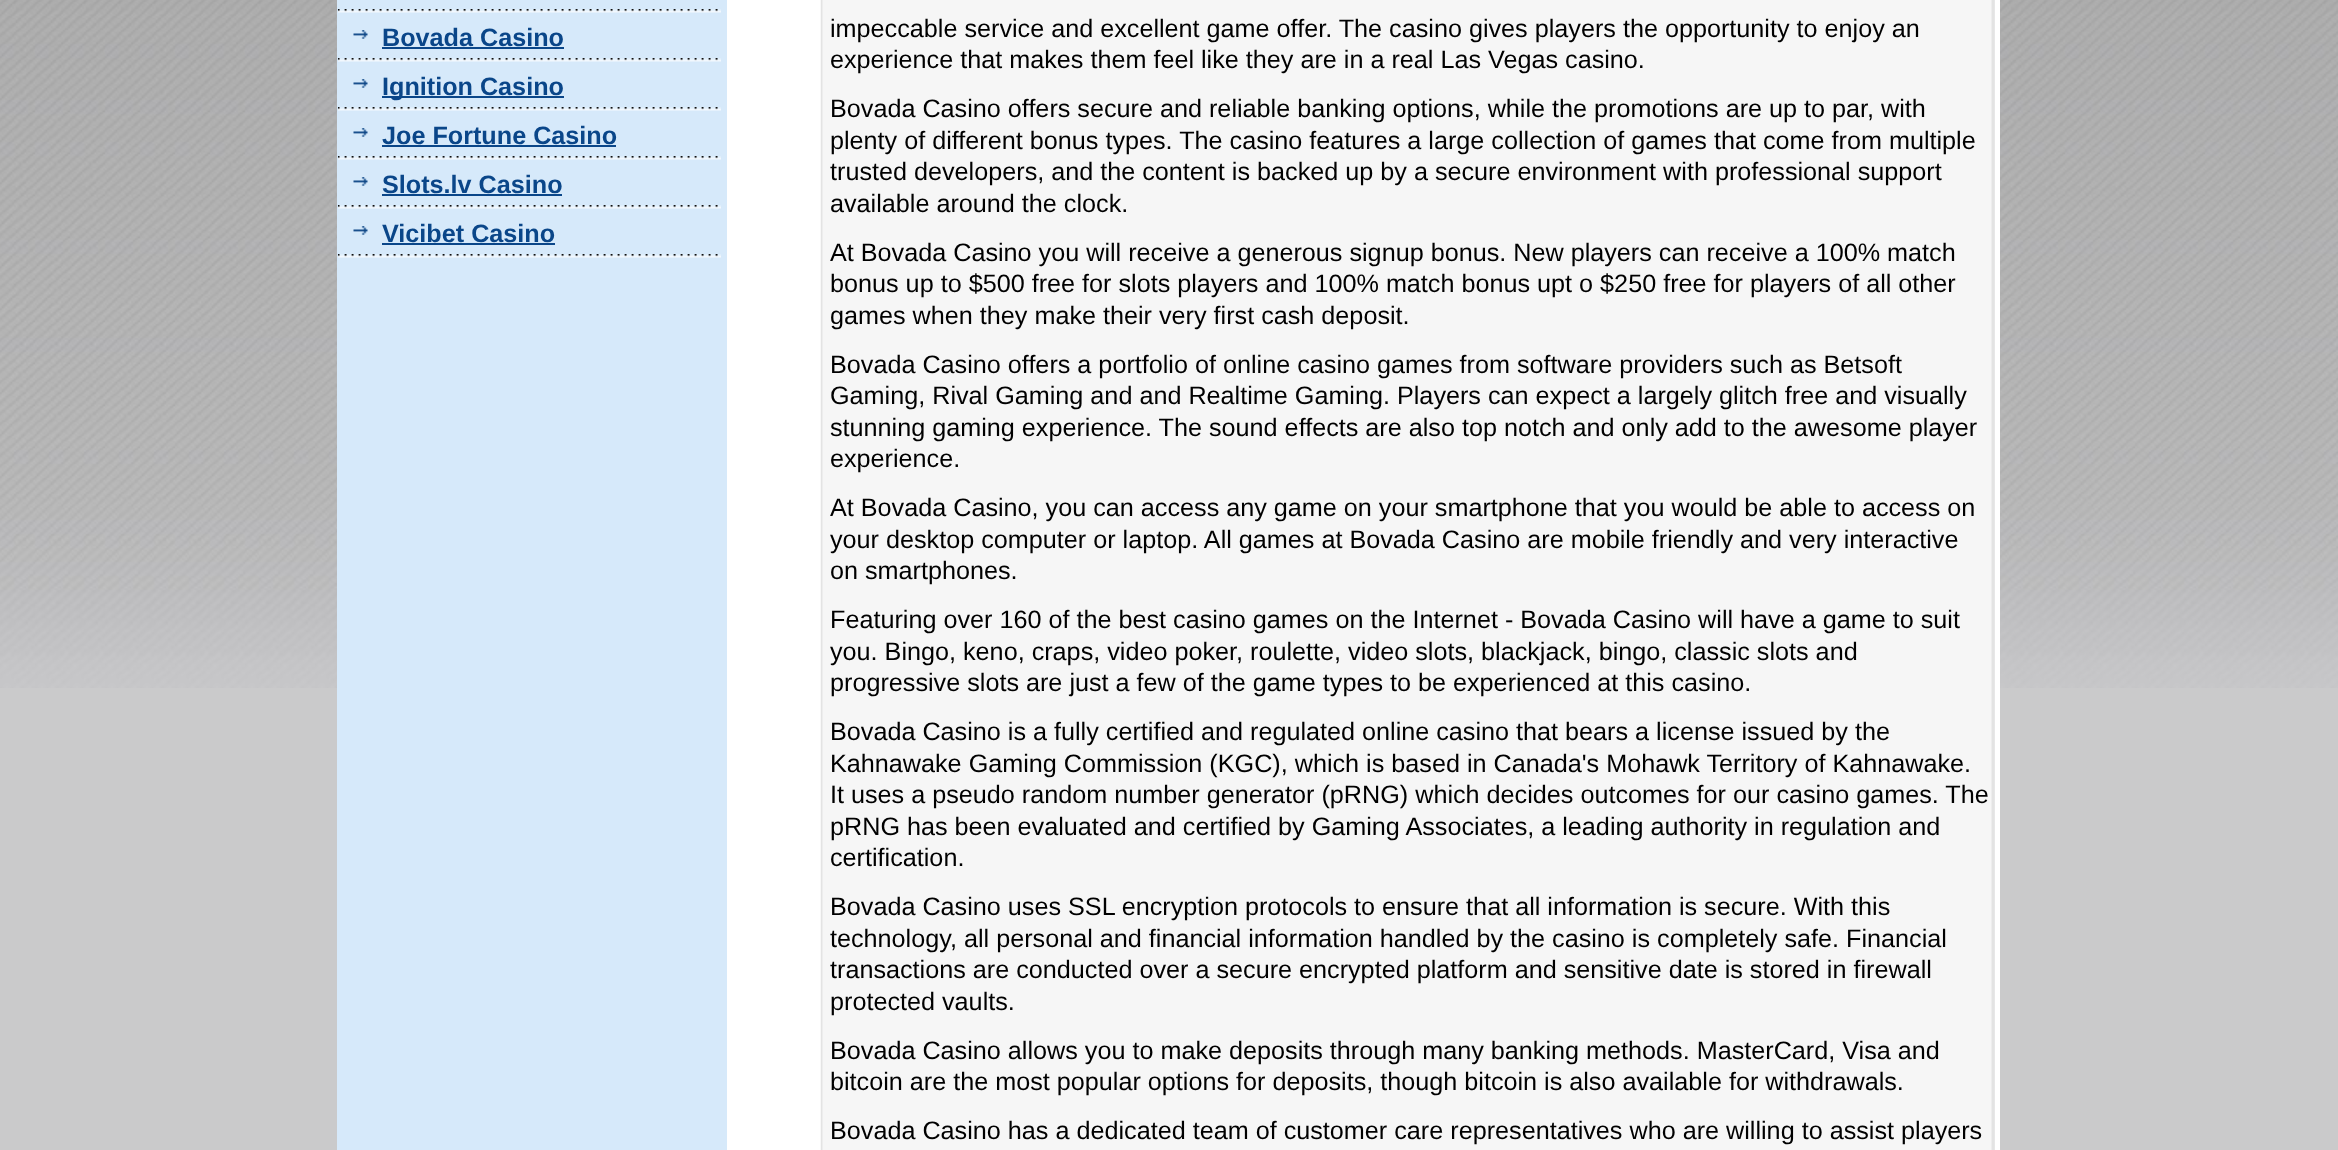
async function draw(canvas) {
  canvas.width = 2338;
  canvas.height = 1150;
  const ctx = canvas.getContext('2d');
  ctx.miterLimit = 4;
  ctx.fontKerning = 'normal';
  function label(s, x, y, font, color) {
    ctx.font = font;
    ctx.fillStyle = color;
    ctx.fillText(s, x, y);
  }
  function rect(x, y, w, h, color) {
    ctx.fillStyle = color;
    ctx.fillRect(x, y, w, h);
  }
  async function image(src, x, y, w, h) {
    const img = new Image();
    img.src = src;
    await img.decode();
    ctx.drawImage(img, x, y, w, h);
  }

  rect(0, 0, 2338, 1150, '#cacacb');
  await image('assets/img1.png', 0, 0, 2338, 688);
  rect(727, 0, 1273, 1150, '#fff');
  rect(337, 0, 390, 1150, '#d6e9fa');
  await image('assets/img2.png', 337, 9, 384, 4);
  await image('assets/img3.png', 337, 58, 384, 4);
  await image('assets/img4.png', 353, 30, 15, 9);
  label('Bovada Casino', 382, 46, 'bold 25.2px Liberation Sans', '#0a4689');
  rect(382, 47, 182, 2, '#0a4689');
  await image('assets/img5.png', 337, 107, 384, 4);
  await image('assets/img4.png', 353, 79, 15, 9);
  rect(382, 96, 182, 2, '#0a4689');
  label('Ignition Casino', 382, 95, 'bold 25.2px Liberation Sans', '#0a4689');
  await image('assets/img2.png', 337, 156, 384, 4);
  await image('assets/img4.png', 353, 128, 15, 9);
  label('Joe Fortune Casino', 382, 144, 'bold 25.2px Liberation Sans', '#0a4689');
  rect(382, 145, 234, 2, '#0a4689');
  await image('assets/img2.png', 337, 205, 384, 4);
  await image('assets/img4.png', 353, 177, 15, 9);
  label('Slots.lv Casino', 382, 193, 'bold 25.2px Liberation Sans', '#0a4689');
  rect(382, 194, 180, 2, '#0a4689');
  await image('assets/img2.png', 337, 254, 384, 4);
  await image('assets/img4.png', 353, 226, 15, 9);
  label('Vicibet Casino', 382, 242, 'bold 25.2px Liberation Sans', '#0a4689');
  rect(382, 243, 173, 2, '#0a4689');
  await image('assets/img6.png', 820, 0, 1175, 1150);
  label('impeccable service and excellent game offer. The casino gives players the opportunity to enjoy an', 830, 37, '25.2px Liberation Sans', '#000');
  label('experience that makes them feel like they are in a real Las Vegas casino.', 830, 68, '25.2px Liberation Sans', '#000');
  label('Bovada Casino offers secure and reliable banking options, while the promotions are up to par, with', 830, 117, '25.2px Liberation Sans', '#000');
  label('plenty of different bonus types. The casino features a large collection of games that come from multiple', 830, 149, '25.2px Liberation Sans', '#000');
  label('trusted developers, and the content is backed up by a secure environment with professional support', 830, 180, '25.2px Liberation Sans', '#000');
  label('available around the clock.', 830, 212, '25.2px Liberation Sans', '#000');
  label('At Bovada Casino you will receive a generous signup bonus. New players can receive a 100% match', 830, 261, '25.2px Liberation Sans', '#000');
  label('bonus up to $500 free for slots players and 100% match bonus upt o $250 free for players of all other', 830, 292, '25.2px Liberation Sans', '#000');
  label('games when they make their very first cash deposit.', 830, 324, '25.2px Liberation Sans', '#000');
  label('Bovada Casino offers a portfolio of online casino games from software providers such as Betsoft', 830, 373, '25.2px Liberation Sans', '#000');
  label('Gaming, Rival Gaming and and Realtime Gaming. Players can expect a largely glitch free and visually', 830, 404, '25.2px Liberation Sans', '#000');
  label('stunning gaming experience. The sound effects are also top notch and only add to the awesome player', 830, 436, '25.2px Liberation Sans', '#000');
  label('experience.', 830, 467, '25.2px Liberation Sans', '#000');
  label('At Bovada Casino, you can access any game on your smartphone that you would be able to access on', 830, 516, '25.2px Liberation Sans', '#000');
  label('your desktop computer or laptop. All games at Bovada Casino are mobile friendly and very interactive', 830, 548, '25.2px Liberation Sans', '#000');
  label('on smartphones.', 830, 579, '25.2px Liberation Sans', '#000');
  label('Featuring over 160 of the best casino games on the Internet - Bovada Casino will have a game to suit', 830, 628, '25.2px Liberation Sans', '#000');
  label('you. Bingo, keno, craps, video poker, roulette, video slots, blackjack, bingo, classic slots and', 830, 660, '25.2px Liberation Sans', '#000');
  label('progressive slots are just a few of the game types to be experienced at this casino.', 830, 691, '25.2px Liberation Sans', '#000');
  label('Bovada Casino is a fully certified and regulated online casino that bears a license issued by the', 830, 740, '25.2px Liberation Sans', '#000');
  label('Kahnawake Gaming Commission (KGC), which is based in Canada\'s Mohawk Territory of Kahnawake.', 830, 772, '25.2px Liberation Sans', '#000');
  label('It uses a pseudo random number generator (pRNG) which decides outcomes for our casino games. The', 830, 803, '25.2px Liberation Sans', '#000');
  label('pRNG has been evaluated and certified by Gaming Associates, a leading authority in regulation and', 830, 835, '25.2px Liberation Sans', '#000');
  label('certification.', 830, 866, '25.2px Liberation Sans', '#000');
  label('Bovada Casino uses SSL encryption protocols to ensure that all information is secure. With this', 830, 915, '25.2px Liberation Sans', '#000');
  label('technology, all personal and financial information handled by the casino is completely safe. Financial', 830, 947, '25.2px Liberation Sans', '#000');
  label('transactions are conducted over a secure encrypted platform and sensitive date is stored in firewall', 830, 978, '25.2px Liberation Sans', '#000');
  label('protected vaults.', 830, 1010, '25.2px Liberation Sans', '#000');
  label('Bovada Casino allows you to make deposits through many banking methods. MasterCard, Visa and', 830, 1059, '25.2px Liberation Sans', '#000');
  label('bitcoin are the most popular options for deposits, though bitcoin is also available for withdrawals.', 830, 1090, '25.2px Liberation Sans', '#000');
  label('Bovada Casino has a dedicated team of customer care representatives who are willing to assist players', 830, 1139, '25.2px Liberation Sans', '#000');
}

draw(document.querySelector('canvas'));
